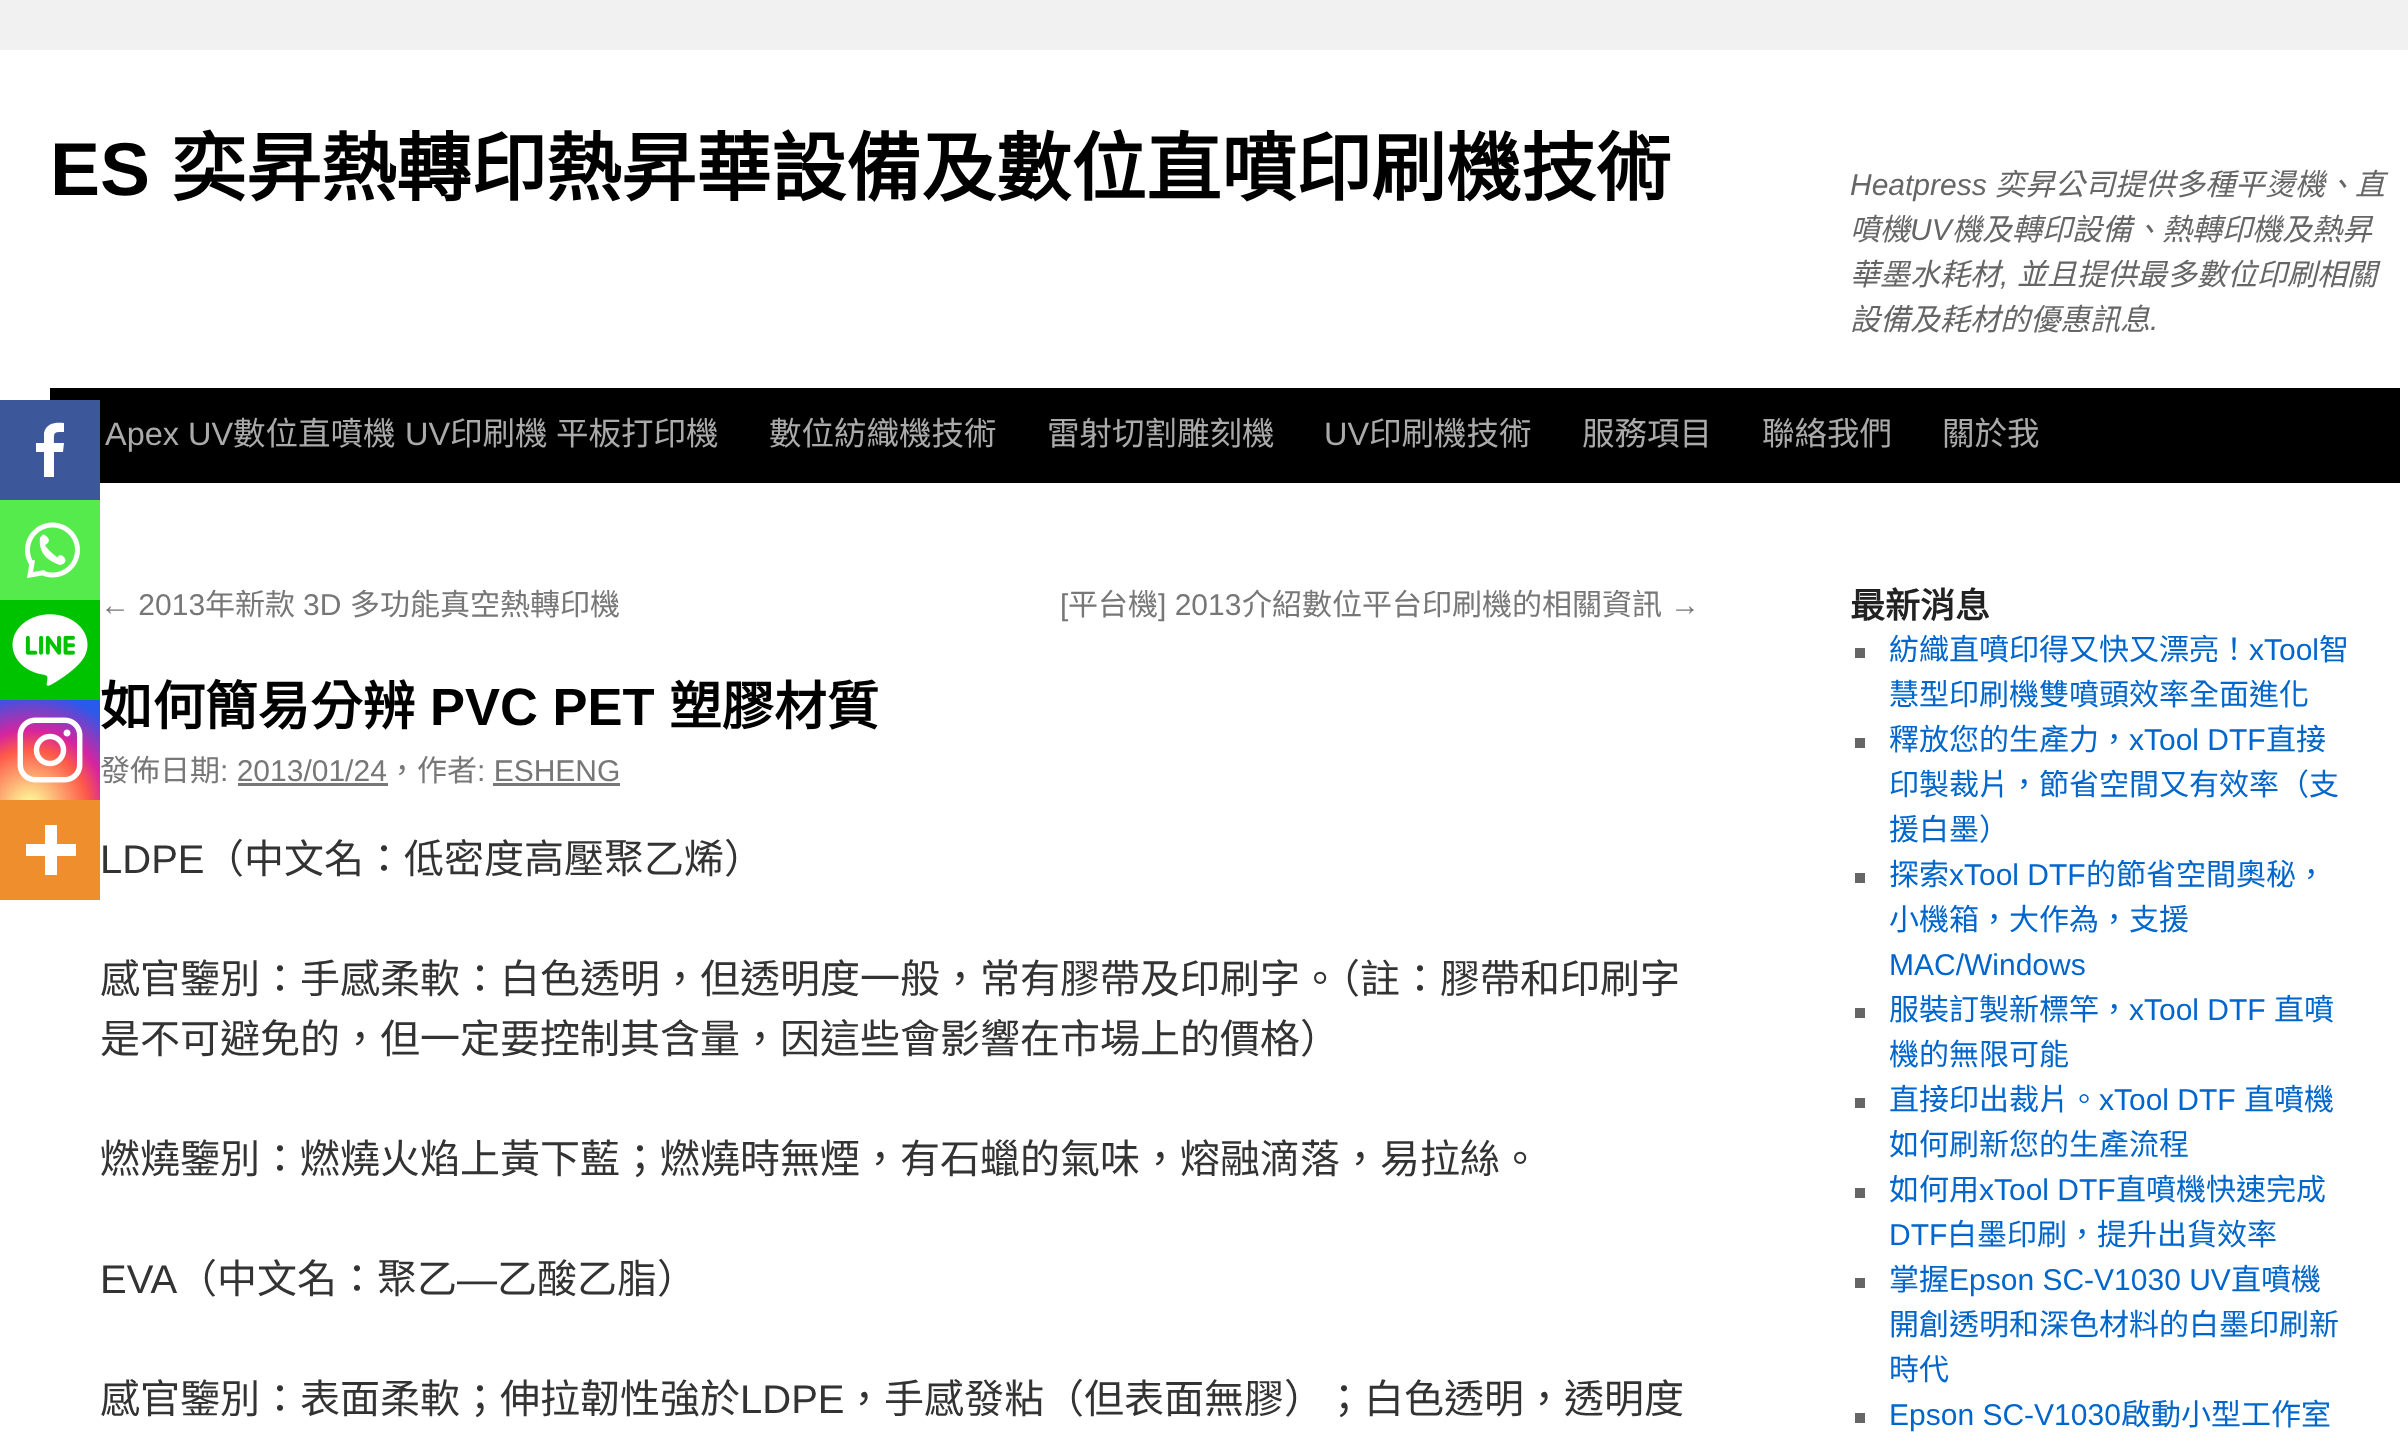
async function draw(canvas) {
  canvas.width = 2408;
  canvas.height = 1447;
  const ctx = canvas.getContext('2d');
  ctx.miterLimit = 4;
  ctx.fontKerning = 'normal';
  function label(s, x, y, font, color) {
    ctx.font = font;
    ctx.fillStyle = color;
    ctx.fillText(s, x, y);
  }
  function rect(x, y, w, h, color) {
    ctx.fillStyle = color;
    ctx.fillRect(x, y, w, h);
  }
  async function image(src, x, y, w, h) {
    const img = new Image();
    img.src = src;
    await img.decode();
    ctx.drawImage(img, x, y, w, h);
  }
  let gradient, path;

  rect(0, 0, 2408, 1447, '#f1f1f1');
  rect(0, 50, 2408, 1397, '#fff');
  label('ES', 50, 195, 'bold 75px Liberation Sans', '#000');
  label('奕昇熱轉印熱昇華設備及數位直噴印刷機技術', 171, 195, 'bold 75px Noto Sans CJK TC', '#000');
  label('Heatpress', 1850, 195, 'italic 30px Liberation Sans', '#666');
  label('奕昇公司提供多種平燙機、直', 1995, 195, 'italic 30px Noto Sans CJK TC', '#666');
  label('噴機', 1850, 240, 'italic 30px Noto Sans CJK TC', '#666');
  label('UV', 1910, 240, 'italic 30px Liberation Sans', '#666');
  label('機及轉印設備、熱轉印機及熱昇', 1952, 240, 'italic 30px Noto Sans CJK TC', '#666');
  label('華墨水耗材', 1850, 285, 'italic 30px Noto Sans CJK TC', '#666');
  label('並且提供最多數位印刷相關', 2017, 285, 'italic 30px Noto Sans CJK TC', '#666');
  label(',', 2000, 285, 'italic 30px Liberation Sans', '#666');
  label('設備及耗材的優惠訊息', 1850, 330, 'italic 30px Noto Sans CJK TC', '#666');
  label('.', 2150, 330, 'italic 30px Liberation Sans', '#666');
  rect(50, 388, 2350, 95, '#000');
  label('Apex UV', 105, 445, '32.5px Liberation Sans', '#aaa');
  label('數位直噴機', 233, 445, '32.5px Noto Sans CJK TC', '#aaa');
  label('UV', 405, 445, '32.5px Liberation Sans', '#aaa');
  label('印刷機', 450, 445, '32.5px Noto Sans CJK TC', '#aaa');
  label('平板打印機', 556, 445, '32.5px Noto Sans CJK TC', '#aaa');
  label('數位紡織機技術', 769, 445, '32.5px Noto Sans CJK TC', '#aaa');
  label('雷射切割雕刻機', 1047, 445, '32.5px Noto Sans CJK TC', '#aaa');
  label('UV', 1324, 445, '32.5px Liberation Sans', '#aaa');
  label('印刷機技術', 1369, 445, '32.5px Noto Sans CJK TC', '#aaa');
  label('服務項目', 1582, 445, '32.5px Noto Sans CJK TC', '#aaa');
  label('聯絡我們', 1762, 445, '32.5px Noto Sans CJK TC', '#aaa');
  label('關於我', 1942, 445, '32.5px Noto Sans CJK TC', '#aaa');
  label('← 2013', 100, 615, '30px Liberation Sans', '#777');
  label('年新款', 205, 615, '30px Noto Sans CJK TC', '#777');
  label('3D', 303, 615, '30px Liberation Sans', '#777');
  label('多功能真空熱轉印機', 350, 615, '30px Noto Sans CJK TC', '#777');
  label('[', 1060, 615, '30px Liberation Sans', '#777');
  label('平台機', 1068, 615, '30px Noto Sans CJK TC', '#777');
  label('] 2013', 1158, 615, '30px Liberation Sans', '#777');
  label('介紹數位平台印刷機的相關資訊', 1242, 615, '30px Noto Sans CJK TC', '#777');
  label('→', 1670, 615, '30px Liberation Sans', '#777');
  label('如何簡易分辨', 100, 725, 'bold 52.5px Noto Sans CJK TC', '#000');
  label('PVC PET', 430, 725, 'bold 52.5px Liberation Sans', '#000');
  label('塑膠材質', 669, 725, 'bold 52.5px Noto Sans CJK TC', '#000');
  label('發佈日期', 100, 781, '30px Noto Sans CJK TC', '#777');
  label(': 2013/01/24', 220, 781, '30px Liberation Sans', '#777');
  label('，作者', 387, 781, '30px Noto Sans CJK TC', '#777');
  label(': ESHENG', 477, 781, '30px Liberation Sans', '#777');
  rect(238, 783, 150, 3, '#777');
  rect(493, 783, 127, 3, '#777');
  rect(0, 400, 100, 100, '#3c589a');
  ctx.fillStyle = '#fff';
  path = new Path2D('M54 477V452H63L64 443H54C54 432 53 432 64 432V423C56 422 46 423 44 433V443H36V452H44V477Z');
  ctx.fill(path);
  rect(0, 500, 100, 100, '#55eb4c');
  await image('assets/img1.png', 25, 522, 55, 56);
  rect(0, 600, 100, 100, '#00c300');
  await image('assets/img2.png', 12, 614, 76, 72);
  gradient = ctx.createRadialGradient(30, 807, 0, 30, 807, 128);
  gradient.addColorStop(0, '#fdf497');
  gradient.addColorStop(0.05, '#fdf497');
  gradient.addColorStop(0.45, '#fd5949');
  gradient.addColorStop(0.6, '#d6249f');
  gradient.addColorStop(0.9, '#285aeb');
  ctx.fillStyle = gradient;
  ctx.fillRect(0, 700, 100, 100);
  await image('assets/img3.png', 17, 717, 66, 66);
  rect(0, 800, 100, 100, '#ee8e2d');
  ctx.fillStyle = '#fff';
  path = new Path2D('M57 844V825H45V844H26V856H45V875H57V856H76V844Z');
  ctx.fill(path, 'evenodd');
  label('LDPE', 100, 873, '40px Liberation Sans', '#333');
  label('（中文名：低密度高壓聚乙烯）', 204, 873, '40px Noto Sans CJK TC', '#333');
  label('感官鑒別：手感柔軟：白色透明，但透明度一般，常有膠帶及印刷字。（註：膠帶和印刷字', 100, 993, '40px Noto Sans CJK TC', '#333');
  label('是不可避免的，但一定要控制其含量，因這些會影響在市場上的價格）', 100, 1053, '40px Noto Sans CJK TC', '#333');
  label('燃燒鑒別：燃燒火焰上黃下藍；燃燒時無煙，有石蠟的氣味，熔融滴落，易拉絲。', 100, 1173, '40px Noto Sans CJK TC', '#333');
  label('EVA', 100, 1293, '40px Liberation Sans', '#333');
  label('（中文名：聚乙', 177, 1293, '40px Noto Sans CJK TC', '#333');
  label('—', 457, 1293, '40px Liberation Sans', '#333');
  label('乙酸乙脂）', 497, 1293, '40px Noto Sans CJK TC', '#333');
  label('感官鑒別：表面柔軟；伸拉韌性強於', 100, 1413, '40px Noto Sans CJK TC', '#333');
  label('LDPE', 740, 1413, '40px Liberation Sans', '#333');
  label('，手感發粘（但表面無膠）；白色透明，透明度', 844, 1413, '40px Noto Sans CJK TC', '#333');
  label('最新消息', 1850, 618, 'bold 35px Noto Sans CJK TC', '#222');
  rect(1855, 648, 10, 10, '#666');
  label('紡織直噴印得又快又漂亮！', 1889, 660, '30px Noto Sans CJK TC', '#06c');
  label('xTool', 2249, 660, '30px Liberation Sans', '#06c');
  label('智', 2319, 660, '30px Noto Sans CJK TC', '#06c');
  label('慧型印刷機雙噴頭效率全面進化', 1889, 705, '30px Noto Sans CJK TC', '#06c');
  rect(1855, 738, 10, 10, '#666');
  label('釋放您的生產力，', 1889, 750, '30px Noto Sans CJK TC', '#06c');
  label('xTool DTF', 2129, 750, '30px Liberation Sans', '#06c');
  label('直接', 2266, 750, '30px Noto Sans CJK TC', '#06c');
  label('印製裁片，節省空間又有效率（支', 1889, 795, '30px Noto Sans CJK TC', '#06c');
  label('援白墨）', 1889, 840, '30px Noto Sans CJK TC', '#06c');
  rect(1855, 873, 10, 10, '#666');
  label('探索', 1889, 885, '30px Noto Sans CJK TC', '#06c');
  label('xTool DTF', 1949, 885, '30px Liberation Sans', '#06c');
  label('的節省空間奧秘，', 2086, 885, '30px Noto Sans CJK TC', '#06c');
  label('小機箱，大作為，支援', 1889, 930, '30px Noto Sans CJK TC', '#06c');
  label('MAC/Windows', 1889, 975, '30px Liberation Sans', '#06c');
  rect(1855, 1008, 10, 10, '#666');
  label('服裝訂製新標竿，', 1889, 1020, '30px Noto Sans CJK TC', '#06c');
  label('xTool DTF', 2129, 1020, '30px Liberation Sans', '#06c');
  label('直噴', 2274, 1020, '30px Noto Sans CJK TC', '#06c');
  label('機的無限可能', 1889, 1065, '30px Noto Sans CJK TC', '#06c');
  rect(1855, 1098, 10, 10, '#666');
  label('直接印出裁片。', 1889, 1110, '30px Noto Sans CJK TC', '#06c');
  label('xTool DTF', 2099, 1110, '30px Liberation Sans', '#06c');
  label('直噴機', 2244, 1110, '30px Noto Sans CJK TC', '#06c');
  label('如何刷新您的生產流程', 1889, 1155, '30px Noto Sans CJK TC', '#06c');
  rect(1855, 1188, 10, 10, '#666');
  label('如何用', 1889, 1200, '30px Noto Sans CJK TC', '#06c');
  label('xTool DTF', 1979, 1200, '30px Liberation Sans', '#06c');
  label('直噴機快速完成', 2116, 1200, '30px Noto Sans CJK TC', '#06c');
  label('DTF', 1889, 1245, '30px Liberation Sans', '#06c');
  label('白墨印刷，提升出貨效率', 1947, 1245, '30px Noto Sans CJK TC', '#06c');
  rect(1855, 1278, 10, 10, '#666');
  label('掌握', 1889, 1290, '30px Noto Sans CJK TC', '#06c');
  label('Epson SC-V1030 UV', 1949, 1290, '30px Liberation Sans', '#06c');
  label('直噴機', 2231, 1290, '30px Noto Sans CJK TC', '#06c');
  label('開創透明和深色材料的白墨印刷新', 1889, 1335, '30px Noto Sans CJK TC', '#06c');
  label('時代', 1889, 1380, '30px Noto Sans CJK TC', '#06c');
  rect(1855, 1413, 10, 10, '#666');
  label('Epson SC-V1030', 1889, 1425, '30px Liberation Sans', '#06c');
  label('啟動小型工作室', 2121, 1425, '30px Noto Sans CJK TC', '#06c');
}

draw(document.querySelector('canvas'));
